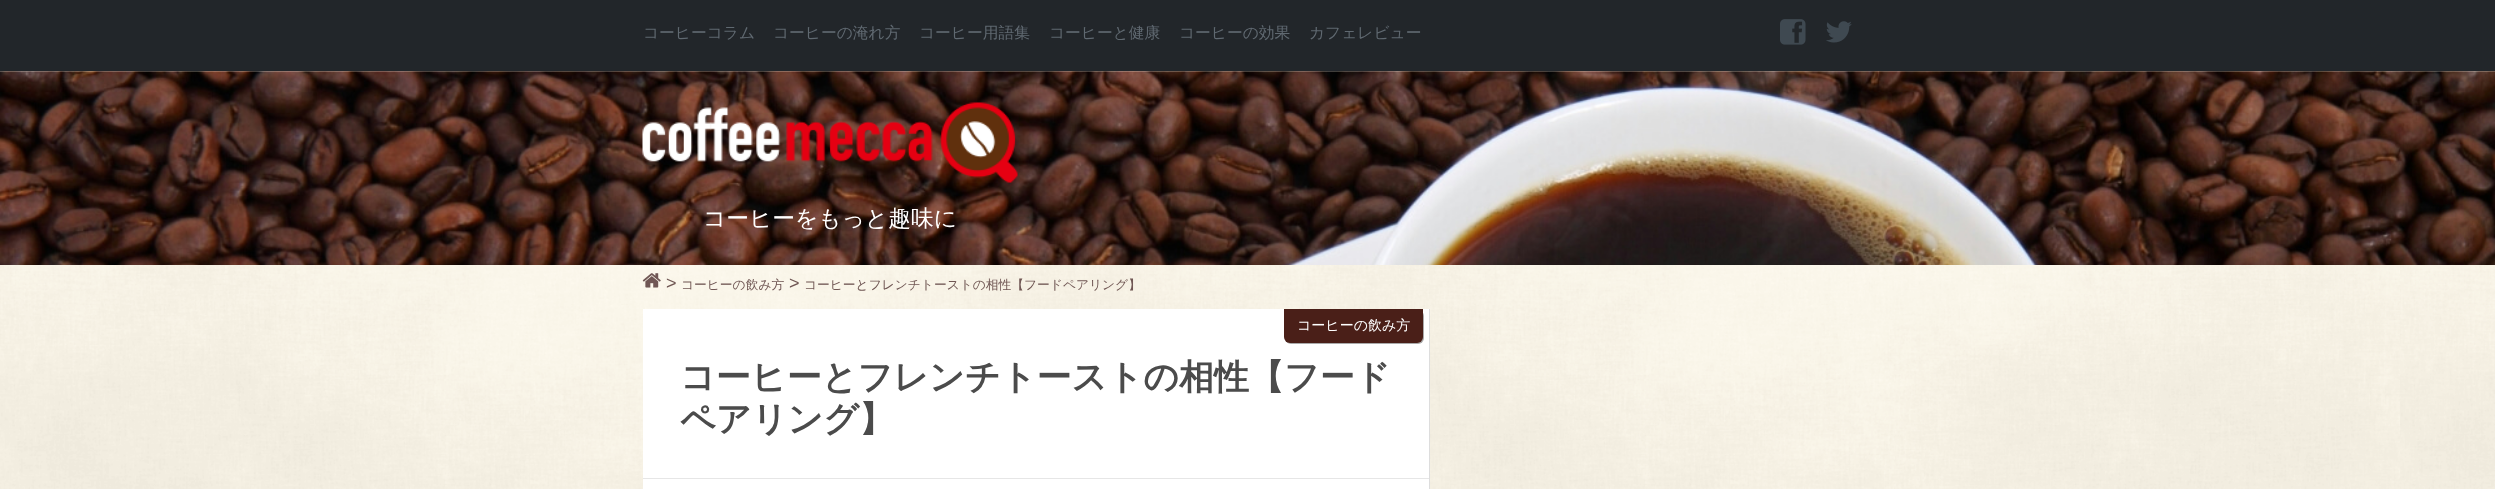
async function draw(canvas) {
  canvas.width = 2495;
  canvas.height = 489;
  const ctx = canvas.getContext('2d');
  ctx.miterLimit = 4;
  ctx.fontKerning = 'normal';
  function label(s, x, y, font, color) {
    ctx.font = font;
    ctx.fillStyle = color;
    ctx.fillText(s, x, y);
  }
  function rect(x, y, w, h, color) {
    ctx.fillStyle = color;
    ctx.fillRect(x, y, w, h);
  }
  async function image(src, x, y, w, h) {
    const img = new Image();
    img.src = src;
    await img.decode();
    ctx.drawImage(img, x, y, w, h);
  }

  rect(0, 0, 2495, 489, '#fff');
  await image('assets/img1.png', 0, 71, 2495, 418);
  rect(0, 0, 2495, 71, '#22262a');
  label('コーヒーコラム', 643, 38, '500 15.75px WenQuanYi Zen Hei', '#606971');
  label('コーヒーの淹れ方', 773, 38, '500 15.75px WenQuanYi Zen Hei', '#606971');
  label('コーヒー用語集', 919, 38, '500 15.75px WenQuanYi Zen Hei', '#606971');
  label('コーヒーと健康', 1049, 38, '500 15.75px WenQuanYi Zen Hei', '#606971');
  label('コーヒーの効果', 1179, 38, '500 15.75px WenQuanYi Zen Hei', '#606971');
  label('カフェレビュー', 1309, 38, '500 15.75px WenQuanYi Zen Hei', '#606971');
  await image('assets/img2.png', 1780, 19, 26, 26);
  await image('assets/img3.png', 1826, 21, 26, 22);
  await image('assets/img4.png', 0, 71, 2495, 194);
  await image('assets/img5.png', 642, 102, 376, 81);
  label('コーヒーをもっと趣味に', 703, 226, '500 22.75px WenQuanYi Zen Hei', '#fff');
  await image('assets/img6.png', 642, 273, 19, 15);
  label('>', 666, 289, '18px Liberation Sans', '#6f5653');
  label('コーヒーの飲み方', 681, 289, '500 12.75px WenQuanYi Zen Hei', '#6f5653');
  label('>', 789, 289, '18px Liberation Sans', '#6f5653');
  label('コーヒーとフレンチトーストの相性【フードペアリング】', 804, 289, '500 12.75px WenQuanYi Zen Hei', '#6f5653');
  rect(643, 309, 786, 180, '#fff');
  rect(1429, 309, 1, 180, '#ddd');
  ctx.fillStyle = '#aaa';
  ctx.filter = 'blur(0.5px)';
  ctx.beginPath();
  ctx.roundRect(1285, 310, 139, 34, 6);
  ctx.fill();
  ctx.filter = 'none';
  ctx.fillStyle = '#4a1f18';
  ctx.beginPath();
  ctx.roundRect(1284, 309, 139, 34, [0, 0, 6, 6]);
  ctx.fill();
  label('コーヒーの飲み方', 1297, 330, '500 14px WenQuanYi Zen Hei', '#fff');
  label('コーヒーとフレンチトーストの相性【フード', 680, 389, 'bold 35px WenQuanYi Zen Hei', '#4b4b4b');
  label('ペアリング】', 680, 431, 'bold 35px WenQuanYi Zen Hei', '#4b4b4b');
  rect(643, 478, 786, 1, '#e6e6e6');
}

draw(document.querySelector('canvas'));
